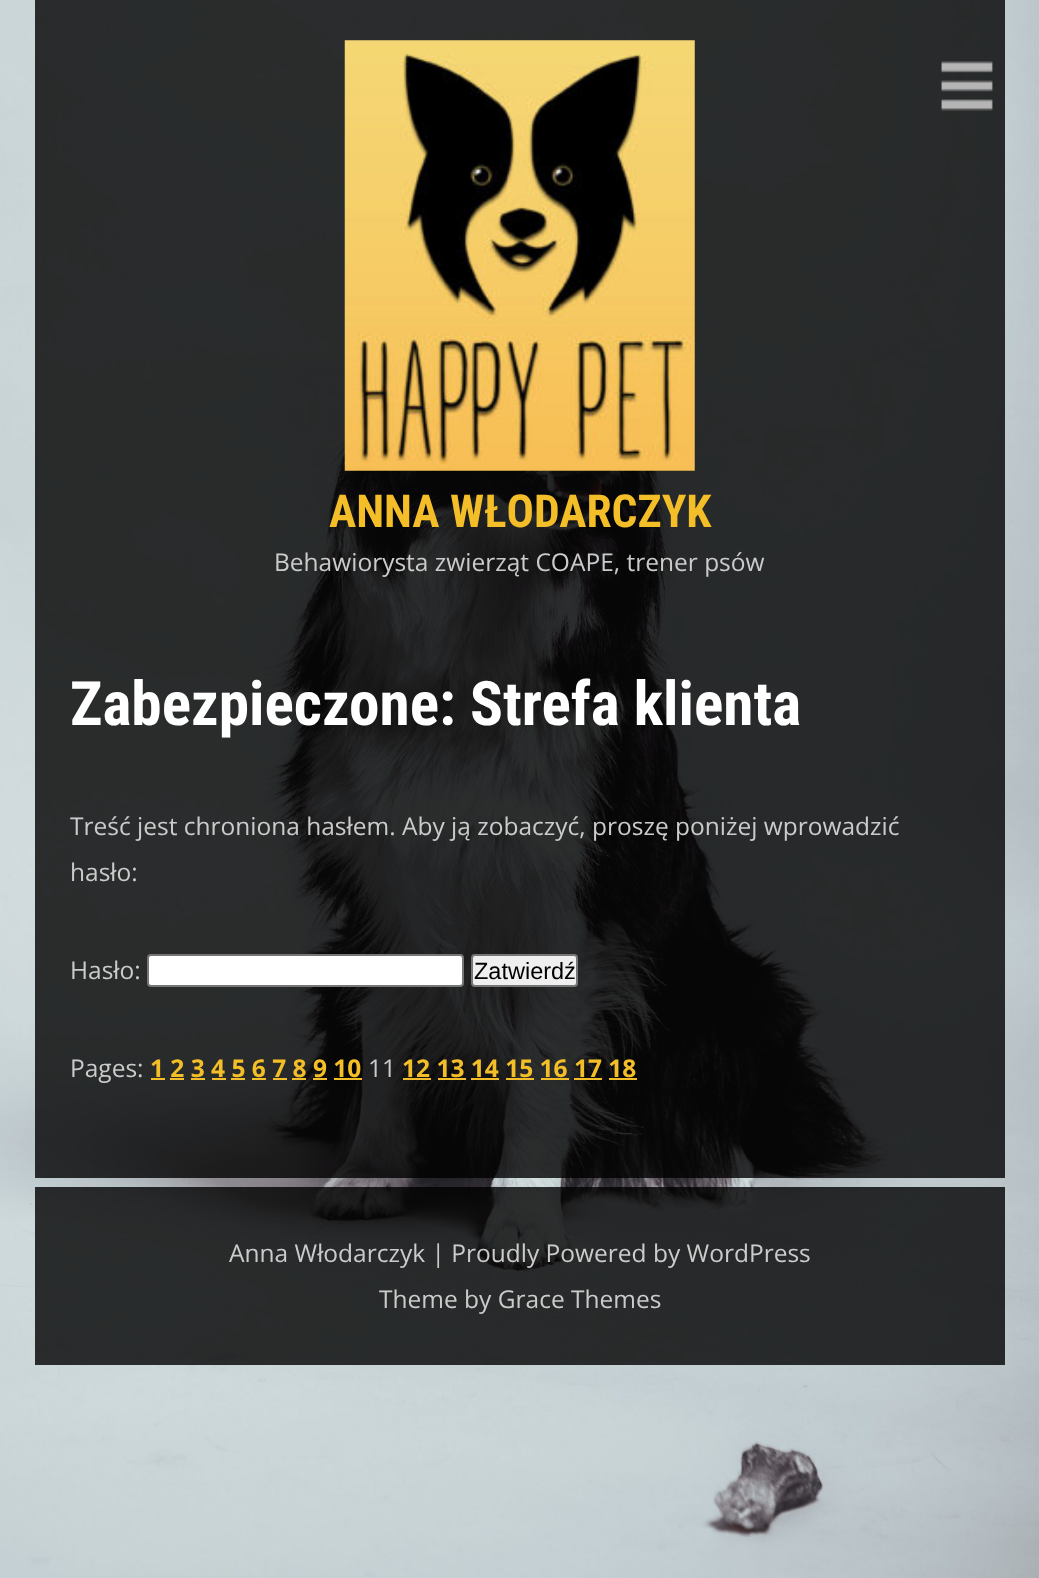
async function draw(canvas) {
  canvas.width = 1039;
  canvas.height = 1578;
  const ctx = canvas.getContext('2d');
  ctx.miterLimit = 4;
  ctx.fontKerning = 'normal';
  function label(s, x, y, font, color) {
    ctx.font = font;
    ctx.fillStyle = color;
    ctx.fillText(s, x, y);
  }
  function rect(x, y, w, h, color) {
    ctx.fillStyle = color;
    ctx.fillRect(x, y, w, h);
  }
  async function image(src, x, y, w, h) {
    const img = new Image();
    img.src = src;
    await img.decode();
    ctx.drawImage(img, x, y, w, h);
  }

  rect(0, 0, 1039, 1578, '#fff');
  await image('assets/img1.png', 0, 0, 1039, 1578);
  rect(35, 0, 970, 634, '#000000cc');
  await image('assets/img2.png', 941, 61, 52, 50);
  await image('assets/img3.png', 344, 40, 351, 431);
  label('ANNA WŁODARCZYK', 329, 527, 'bold 45.5px Roboto Condensed', '#f4be29');
  label('Behawiorysta zwierząt COAPE, trener psów', 274, 571, '24.5px Open Sans', '#cbcbcb');
  rect(35, 634, 970, 544, '#000000cc');
  label('Zabezpieczone: Strefa klienta', 70, 725, 'bold 61.25px Roboto Condensed', '#fff');
  label('Treść jest chroniona hasłem. Aby ją zobaczyć, proszę poniżej wprowadzić', 70, 835, '24.5px Open Sans', '#cbcbcb');
  label('hasło:', 70, 881, '24.5px Open Sans', '#cbcbcb');
  label('Hasło:', 70, 979, '24.5px Open Sans', '#cbcbcb');
  ctx.fillStyle = '#fff';
  ctx.beginPath();
  ctx.roundRect(148, 955, 315, 31, 3);
  ctx.fill();
  ctx.strokeStyle = '#767676';
  ctx.lineWidth = 2;
  ctx.stroke();
  ctx.fillStyle = '#efefef';
  ctx.beginPath();
  ctx.roundRect(472, 955, 105, 31, 3);
  ctx.fill();
  ctx.stroke();
  label('Zatwierdź', 474, 979, '23.5px Liberation Sans', '#000');
  label('Pages:', 70, 1077, '24.5px Open Sans', '#cbcbcb');
  label('1 2 3 4 5 6 7 8 9 10', 150, 1077, 'bold 24.5px Open Sans', '#f4be29');
  rect(151, 1078, 14, 2, '#f4be29');
  label('11', 368, 1077, '24.5px Open Sans', '#cbcbcb');
  label('12 13 14 15 16 17 18', 402, 1077, 'bold 24.5px Open Sans', '#f4be29');
  rect(403, 1078, 28, 2, '#f4be29');
  rect(170, 1078, 14, 2, '#f4be29');
  rect(191, 1078, 14, 2, '#f4be29');
  rect(212, 1078, 14, 2, '#f4be29');
  rect(231, 1078, 14, 2, '#f4be29');
  rect(252, 1078, 14, 2, '#f4be29');
  rect(273, 1078, 14, 2, '#f4be29');
  rect(292, 1078, 14, 2, '#f4be29');
  rect(313, 1078, 14, 2, '#f4be29');
  rect(334, 1078, 28, 2, '#f4be29');
  rect(438, 1078, 28, 2, '#f4be29');
  rect(471, 1078, 28, 2, '#f4be29');
  rect(506, 1078, 28, 2, '#f4be29');
  rect(541, 1078, 28, 2, '#f4be29');
  rect(574, 1078, 28, 2, '#f4be29');
  rect(609, 1078, 28, 2, '#f4be29');
  rect(35, 1187, 970, 178, '#000000cc');
  label('Anna Włodarczyk | Proudly Powered by WordPress', 229, 1262, '24.5px Open Sans', '#cbcbcb');
  label('Theme by Grace Themes', 379, 1308, '24.5px Open Sans', '#cbcbcb');
}

draw(document.querySelector('canvas'));
